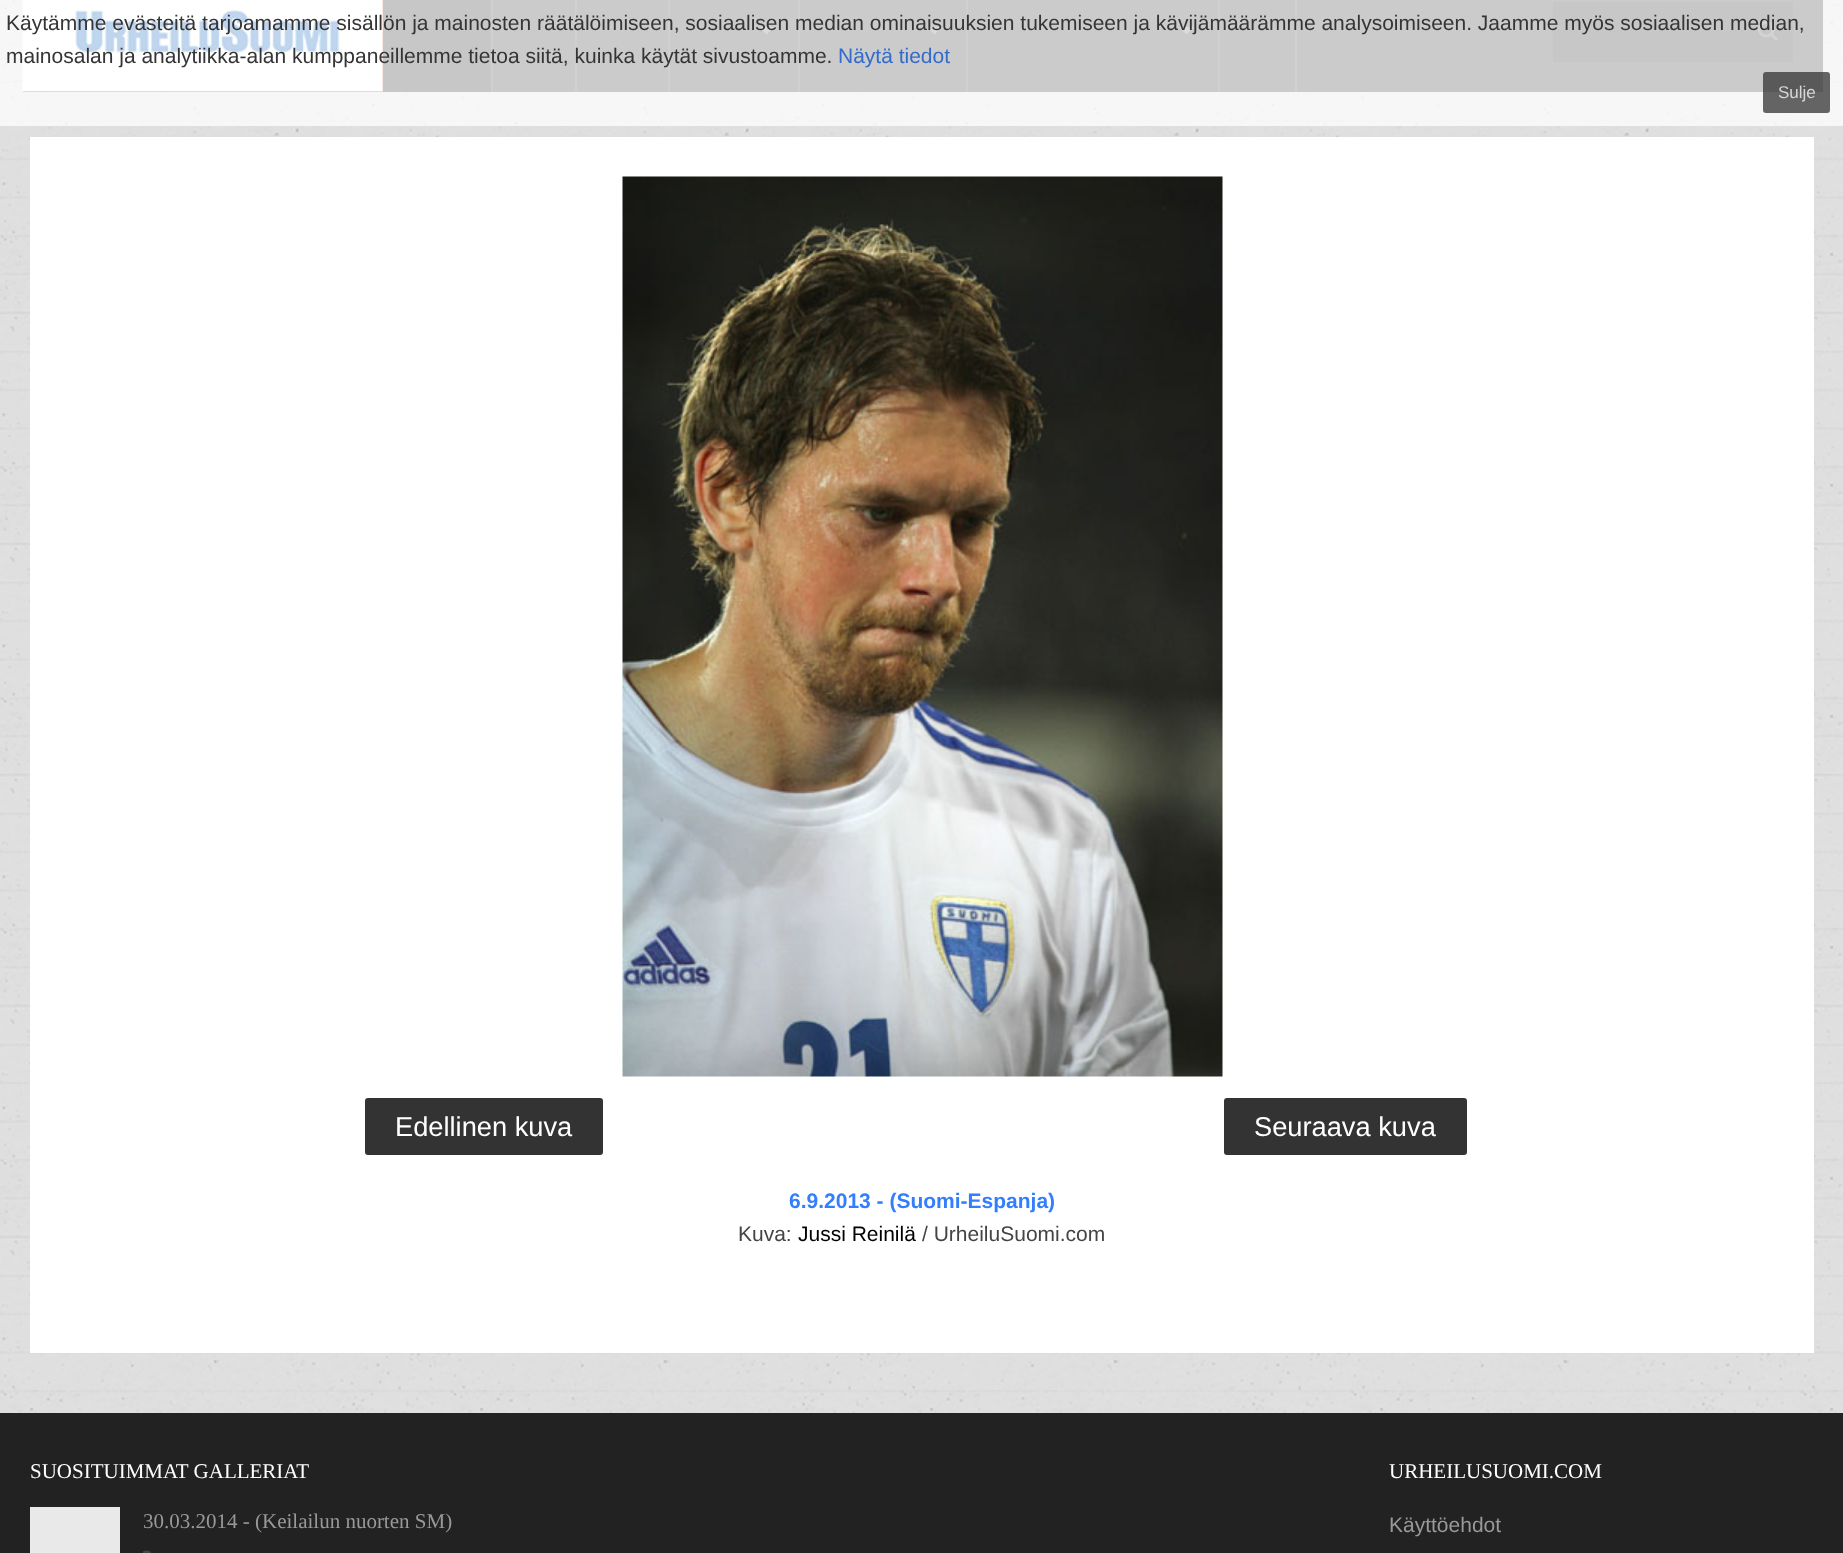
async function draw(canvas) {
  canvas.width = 1843;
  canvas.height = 1553;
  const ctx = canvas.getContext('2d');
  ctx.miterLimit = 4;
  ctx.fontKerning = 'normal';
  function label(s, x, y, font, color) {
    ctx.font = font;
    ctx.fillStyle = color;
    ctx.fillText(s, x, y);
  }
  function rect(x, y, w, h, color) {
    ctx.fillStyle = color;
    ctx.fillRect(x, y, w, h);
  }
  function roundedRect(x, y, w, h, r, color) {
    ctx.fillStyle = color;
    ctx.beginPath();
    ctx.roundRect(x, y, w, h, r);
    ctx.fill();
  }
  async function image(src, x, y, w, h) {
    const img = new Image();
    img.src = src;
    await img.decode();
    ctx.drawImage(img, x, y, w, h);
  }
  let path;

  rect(0, 0, 1843, 1553, '#fff');
  await image('assets/img1.png', 0, 0, 1843, 1413);
  rect(493, 0, 1330, 92, '#333');
  rect(23, 0, 360, 92, '#e74c3c');
  await image('assets/img2.png', 22, 0, 361, 91);
  rect(383, 0, 108, 92, '#222');
  rect(491, 0, 2, 92, '#444');
  rect(575, 0, 2, 92, '#444');
  rect(668, 0, 2, 92, '#444');
  rect(798, 0, 2, 92, '#444');
  ctx.fillStyle = '#707070';
  path = new Path2D('M759 27H774L766.5 34.5Z');
  ctx.fill(path);
  rect(966, 0, 2, 92, '#444');
  ctx.fillStyle = '#707070';
  path = new Path2D('M927 27H942L934.5 34.5Z');
  ctx.fill(path);
  rect(1218, 0, 2, 92, '#444');
  ctx.fillStyle = '#707070';
  path = new Path2D('M1179 27H1194L1186.5 34.5Z');
  ctx.fill(path);
  rect(1295, 0, 2, 92, '#444');
  rect(1553, 2, 240, 60, '#222');
  await image('assets/img3.png', 1758, 21, 20, 20);
  rect(0, 0, 1843, 126, '#ffffffbf');
  label('Käytämme evästeitä tarjoamamme sisällön ja mainosten räätälöimiseen, sosiaalisen median ominaisuuksien tukemiseen ja kävijämäärämme analysoimiseen. Jaamme myös sosiaalisen median,', 6, 30, '21px Liberation Sans', '#353535');
  label('mainosalan ja analytiikka-alan kumppaneillemme tietoa siitä, kuinka käytät sivustoamme.', 6, 63, '21px Liberation Sans', '#353535');
  label('Näytä tiedot', 838, 63, '21px Liberation Sans', '#326bcb');
  roundedRect(1763, 72, 67, 41, 3, '#333333bf');
  label('Sulje', 1778, 98, '17px Liberation Sans', '#d7d7d7');
  rect(30, 137, 1784, 1216, '#fff');
  await image('assets/img4.png', 622, 176, 601, 901);
  roundedRect(365, 1098, 238, 57, 3, '#333');
  label('Edellinen kuva', 395, 1136, '27.25px Liberation Sans', '#fff');
  roundedRect(1224, 1098, 243, 57, 3, '#333');
  label('Seuraava kuva', 1254, 1136, '27.25px Liberation Sans', '#fff');
  label('6.9.2013 - (Suomi-Espanja)', 789, 1208, 'bold 21px Liberation Sans', '#327efd');
  label('Kuva:', 738, 1241, '21px Liberation Sans', '#444');
  label('Jussi Reinilä', 798, 1241, '21px Liberation Sans', '#000');
  label('/ UrheiluSuomi.com', 922, 1241, '21px Liberation Sans', '#444');
  rect(0, 1413, 1843, 140, '#222');
  label('SUOSITUIMMAT GALLERIAT', 30, 1478, '21px Liberation Serif', '#fff');
  rect(30, 1507, 90, 46, '#e9e9e9');
  label('30.03.2014 - (Keilailun nuorten SM)', 143, 1528, '21px Liberation Serif', '#999');
  await image('assets/img5.png', 143, 1550, 8, 3);
  label('URHEILUSUOMI.COM', 1389, 1478, '21px Liberation Serif', '#fff');
  label('Käyttöehdot', 1389, 1532, '21px Liberation Sans', '#999');
}

draw(document.querySelector('canvas'));
